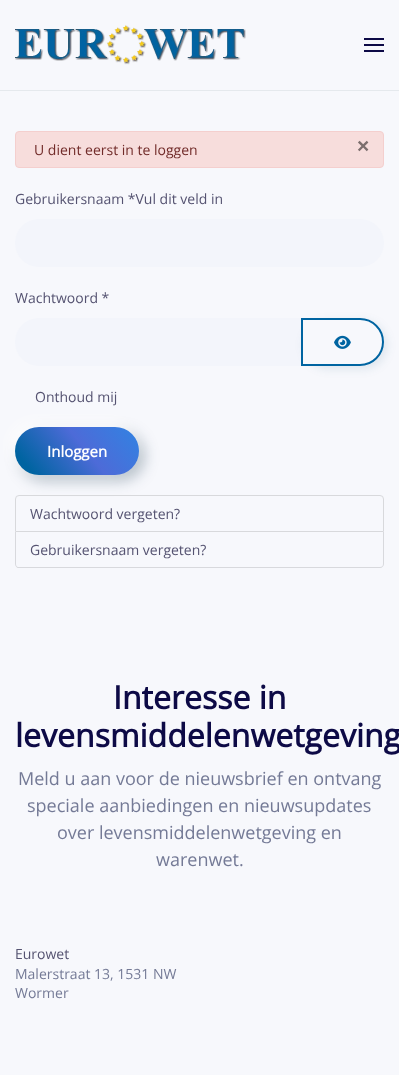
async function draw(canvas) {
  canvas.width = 399;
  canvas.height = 1075;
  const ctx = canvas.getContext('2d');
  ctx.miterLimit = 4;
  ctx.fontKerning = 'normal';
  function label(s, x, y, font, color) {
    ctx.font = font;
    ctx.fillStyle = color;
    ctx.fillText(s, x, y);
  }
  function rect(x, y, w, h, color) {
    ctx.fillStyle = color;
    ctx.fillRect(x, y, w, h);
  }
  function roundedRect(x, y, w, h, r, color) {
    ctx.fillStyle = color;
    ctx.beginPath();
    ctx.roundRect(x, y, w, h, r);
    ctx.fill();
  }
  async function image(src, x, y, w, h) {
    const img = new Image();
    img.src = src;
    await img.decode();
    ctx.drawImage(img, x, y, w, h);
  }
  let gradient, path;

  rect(0, 0, 399, 1075, '#f7f8fc');
  rect(0, 90, 399, 1, '#e5e9ed');
  await image('assets/img1.png', 15, 25, 231, 40);
  rect(364, 38, 20, 2, '#0d0a46');
  rect(364, 44, 20, 2, '#0d0a46');
  rect(364, 50, 20, 2, '#0d0a46');
  ctx.fillStyle = '#f7dddc';
  ctx.beginPath();
  ctx.roundRect(15.5, 131.5, 368, 36, 3.5);
  ctx.fill();
  ctx.strokeStyle = '#f4cfce';
  ctx.stroke();
  label('U dient eerst in te loggen', 34, 155, '14px Open Sans', '#712b29');
  label('×', 357, 153, 'bold 21px Liberation Sans', '#7c6f6e');
  label('Gebruikersnaam *Vul dit veld in', 15, 204, '14px Open Sans', '#555371');
  roundedRect(15, 219, 369, 48, 24, '#f3f5fb');
  label('Wachtwoord *', 15, 303, '14px Open Sans', '#555371');
  ctx.fillStyle = '#f3f5fb';
  ctx.beginPath();
  ctx.roundRect(15, 318, 287, 48, [24, 0, 0, 24]);
  ctx.fill();
  ctx.save();
  path = new Path2D('M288 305H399V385H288ZM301 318H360C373.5 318 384 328.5 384 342C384 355.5 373.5 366 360 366H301Z');
  ctx.clip(path, 'evenodd');
  ctx.fillStyle = '#00446e1a';
  ctx.filter = 'blur(5px)';
  ctx.beginPath();
  ctx.roundRect(304, 321, 83, 48, 24);
  ctx.fill();
  ctx.filter = 'none';
  ctx.restore();
  ctx.beginPath();
  ctx.roundRect(302, 319, 81, 46, [0, 23, 23, 0]);
  ctx.strokeStyle = '#0064a1';
  ctx.lineWidth = 2;
  ctx.stroke();
  await image('assets/img2.png', 334, 335, 17, 14);
  label('Onthoud mij', 35, 402, '14px Open Sans', '#555371');
  ctx.fillStyle = '#00253b4d';
  ctx.filter = 'blur(7.5px)';
  ctx.beginPath();
  ctx.roundRect(20, 432, 124, 48, 24);
  ctx.fill();
  ctx.filter = 'none';
  ctx.fillStyle = '#ffffffe6';
  ctx.filter = 'blur(7.5px)';
  ctx.beginPath();
  ctx.roundRect(10, 422, 124, 48, 24);
  ctx.fill();
  ctx.filter = 'none';
  gradient = ctx.createLinearGradient(-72, 521, 102, 381);
  gradient.addColorStop(0.5, '#0064a1');
  gradient.addColorStop(0.75, '#4d6bd8');
  gradient.addColorStop(1, '#3183e2');
  ctx.fillStyle = gradient;
  ctx.beginPath();
  ctx.roundRect(15, 427, 124, 48, 24);
  ctx.fill();
  label('Inloggen', 47, 457, 'bold 15px Open Sans', '#fff');
  ctx.beginPath();
  ctx.roundRect(15.5, 495.5, 368, 36, [3.5, 3.5, 0, 0]);
  ctx.strokeStyle = '#d8d9dc';
  ctx.lineWidth = 1;
  ctx.stroke();
  label('Wachtwoord vergeten?', 30, 519, '14px Open Sans', '#555371');
  ctx.fillStyle = '#d8d9dd';
  path = new Path2D('M15 532H384V564C384 566 382 568 380 568H18C17 568 15 566 15 564ZM16 532H383V564C383 566 382 567 380 567H18C17 567 16 566 16 564Z');
  ctx.fill(path, 'evenodd');
  label('Gebruikersnaam vergeten?', 30, 555, '14px Open Sans', '#555371');
  label('Interesse in', 113, 709, 'bold 32px Open Sans', '#0d0a46');
  label('levensmiddelenwetgeving', 15, 747, 'bold 32px Open Sans', '#0d0a46');
  label('Meld u aan voor de nieuwsbrief en ontvang', 18, 785, '18px Open Sans', '#747a96');
  label('speciale aanbiedingen en nieuwsupdates', 27, 812, '18px Open Sans', '#747a96');
  label('over levensmiddelenwetgeving en', 57, 839, '18px Open Sans', '#747a96');
  label('warenwet.', 156, 866, '18px Open Sans', '#747a96');
  label('Eurowet', 15, 959, '14px Open Sans', '#555371');
  label('Malerstraat 13, 1531 NW', 15, 979, '14px Open Sans', '#747a96');
  label('Wormer', 15, 998, '14px Open Sans', '#747a96');
}

draw(document.querySelector('canvas'));
